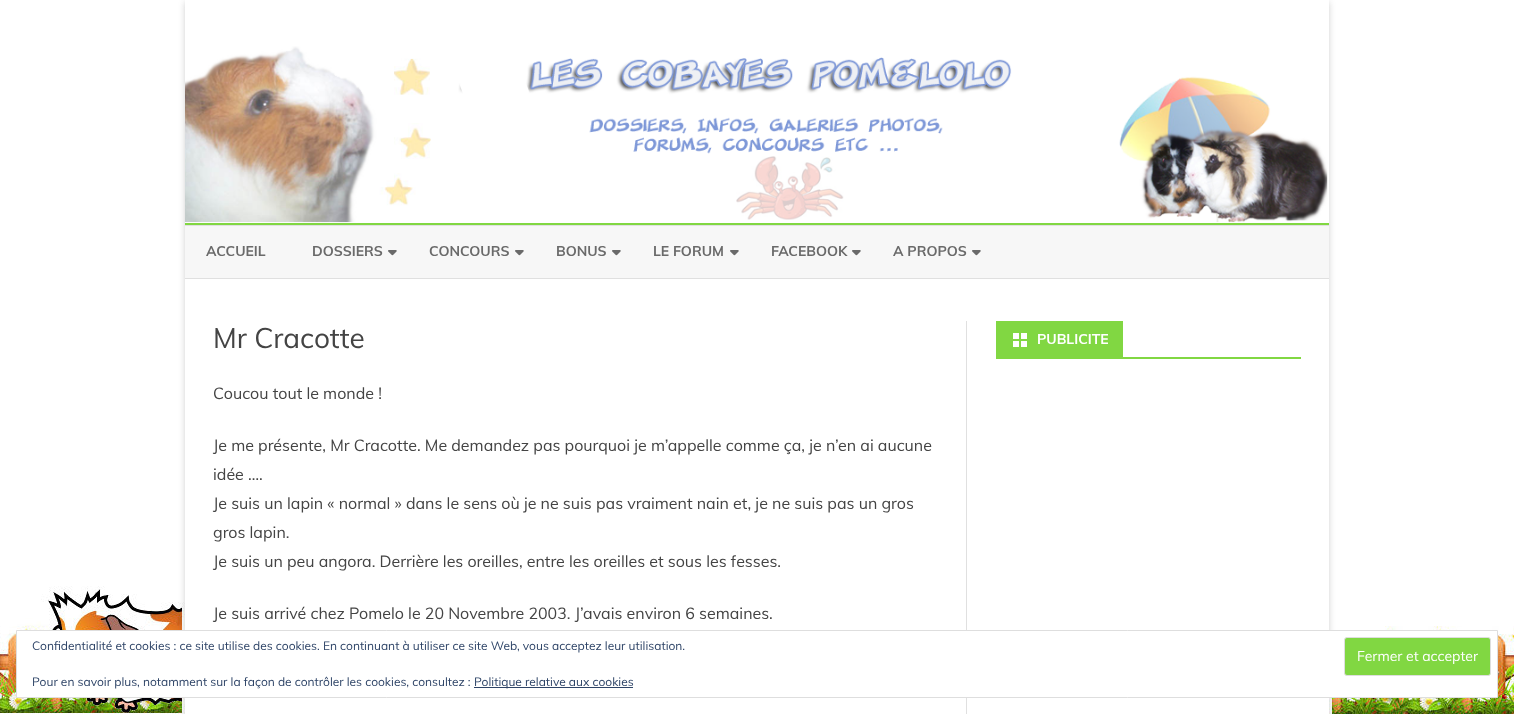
async function draw(canvas) {
  canvas.width = 1514;
  canvas.height = 714;
  const ctx = canvas.getContext('2d');
  ctx.miterLimit = 4;
  ctx.fontKerning = 'normal';
  function label(s, x, y, font, color) {
    ctx.font = font;
    ctx.fillStyle = color;
    ctx.fillText(s, x, y);
  }
  function rect(x, y, w, h, color) {
    ctx.fillStyle = color;
    ctx.fillRect(x, y, w, h);
  }
  async function image(src, x, y, w, h) {
    const img = new Image();
    img.src = src;
    await img.decode();
    ctx.drawImage(img, x, y, w, h);
  }
  let path;

  rect(0, 0, 1514, 714, '#fff');
  await image('assets/img1.png', 0, 586, 1514, 128);
  ctx.save();
  path = new Path2D('M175 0H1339V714H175ZM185 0H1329V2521H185Z');
  ctx.clip(path, 'evenodd');
  ctx.fillStyle = '#6464644d';
  ctx.filter = 'blur(3px)';
  ctx.beginPath();
  ctx.rect(185, 2, 1144, 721);
  ctx.fill();
  ctx.filter = 'none';
  ctx.restore();
  await image('assets/img2.png', 185, 46, 1143, 177);
  rect(185, 226, 1144, 52, '#f7f7f7');
  rect(185, 223, 1144, 2, '#81d742');
  rect(185, 225, 1144, 1, '#e0e0e0');
  rect(185, 278, 1144, 1, '#e0e0e0');
  label('ACCUEIL', 206, 256, 'bold 14px Muli', '#6a6a6a');
  label('DOSSIERS', 312, 256, 'bold 14px Muli', '#6a6a6a');
  await image('assets/img3.png', 388, 250, 9, 6);
  label('CONCOURS', 429, 256, 'bold 14px Muli', '#6a6a6a');
  await image('assets/img3.png', 515, 250, 9, 6);
  label('BONUS', 556, 256, 'bold 14px Muli', '#6a6a6a');
  await image('assets/img3.png', 612, 250, 9, 6);
  label('LE FORUM', 653, 256, 'bold 14px Muli', '#6a6a6a');
  await image('assets/img3.png', 730, 250, 9, 6);
  label('FACEBOOK', 771, 256, 'bold 14px Muli', '#6a6a6a');
  await image('assets/img3.png', 852, 250, 9, 6);
  label('A PROPOS', 893, 256, 'bold 14px Muli', '#6a6a6a');
  await image('assets/img3.png', 972, 250, 9, 6);
  rect(966, 321, 1, 393, '#e0e0e0');
  label('Mr Cracotte', 213, 348, '28px Muli', '#444');
  label('Coucou tout le monde !', 213, 399, '16px Muli', '#444');
  label('Je me présente, Mr Cracotte. Me demandez pas pourquoi je m’appelle comme ça, je n’en ai aucune', 213, 451, '16px Muli', '#444');
  label('idée ….', 213, 480, '16px Muli', '#444');
  label('Je suis un lapin « normal » dans le sens où je ne suis pas vraiment nain et, je ne suis pas un gros', 213, 509, '16px Muli', '#444');
  label('gros lapin.', 213, 538, '16px Muli', '#444');
  label('Je suis un peu angora. Derrière les oreilles, entre les oreilles et sous les fesses.', 213, 567, '16px Muli', '#444');
  label('Je suis arrivé chez Pomelo le 20 Novembre 2003. J’avais environ 6 semaines.', 213, 619, '16px Muli', '#444');
  rect(996, 357, 305, 2, '#81d742');
  rect(996, 321, 127, 36, '#81d742');
  await image('assets/img4.png', 1013, 333, 14, 14);
  label('PUBLICITE', 1037, 344, 'bold 14px Muli', '#fff');
  ctx.beginPath();
  ctx.rect(16.5, 630.5, 1481, 67);
  ctx.fill();
  ctx.strokeStyle = '#dedede';
  ctx.stroke();
  label('Confidentialité et cookies : ce site utilise des cookies. En continuant à utiliser ce site Web, vous acceptez leur utilisation.', 32, 650, '12px Muli', '#2e4467');
  ctx.fillStyle = '#81d742';
  ctx.beginPath();
  ctx.roundRect(1344.5, 637.5, 146, 38, 2.5);
  ctx.fill();
  ctx.stroke();
  label('Fermer et accepter', 1357, 661, '14px Muli', '#fff');
  label('Pour en savoir plus, notamment sur la façon de contrôler les cookies, consultez :', 32, 686, '12px Muli', '#2e4467');
  rect(474, 687, 159, 1, '#2e4467');
  label('Politique relative aux cookies', 474, 686, '12px Muli', '#2e4467');
}

draw(document.querySelector('canvas'));
